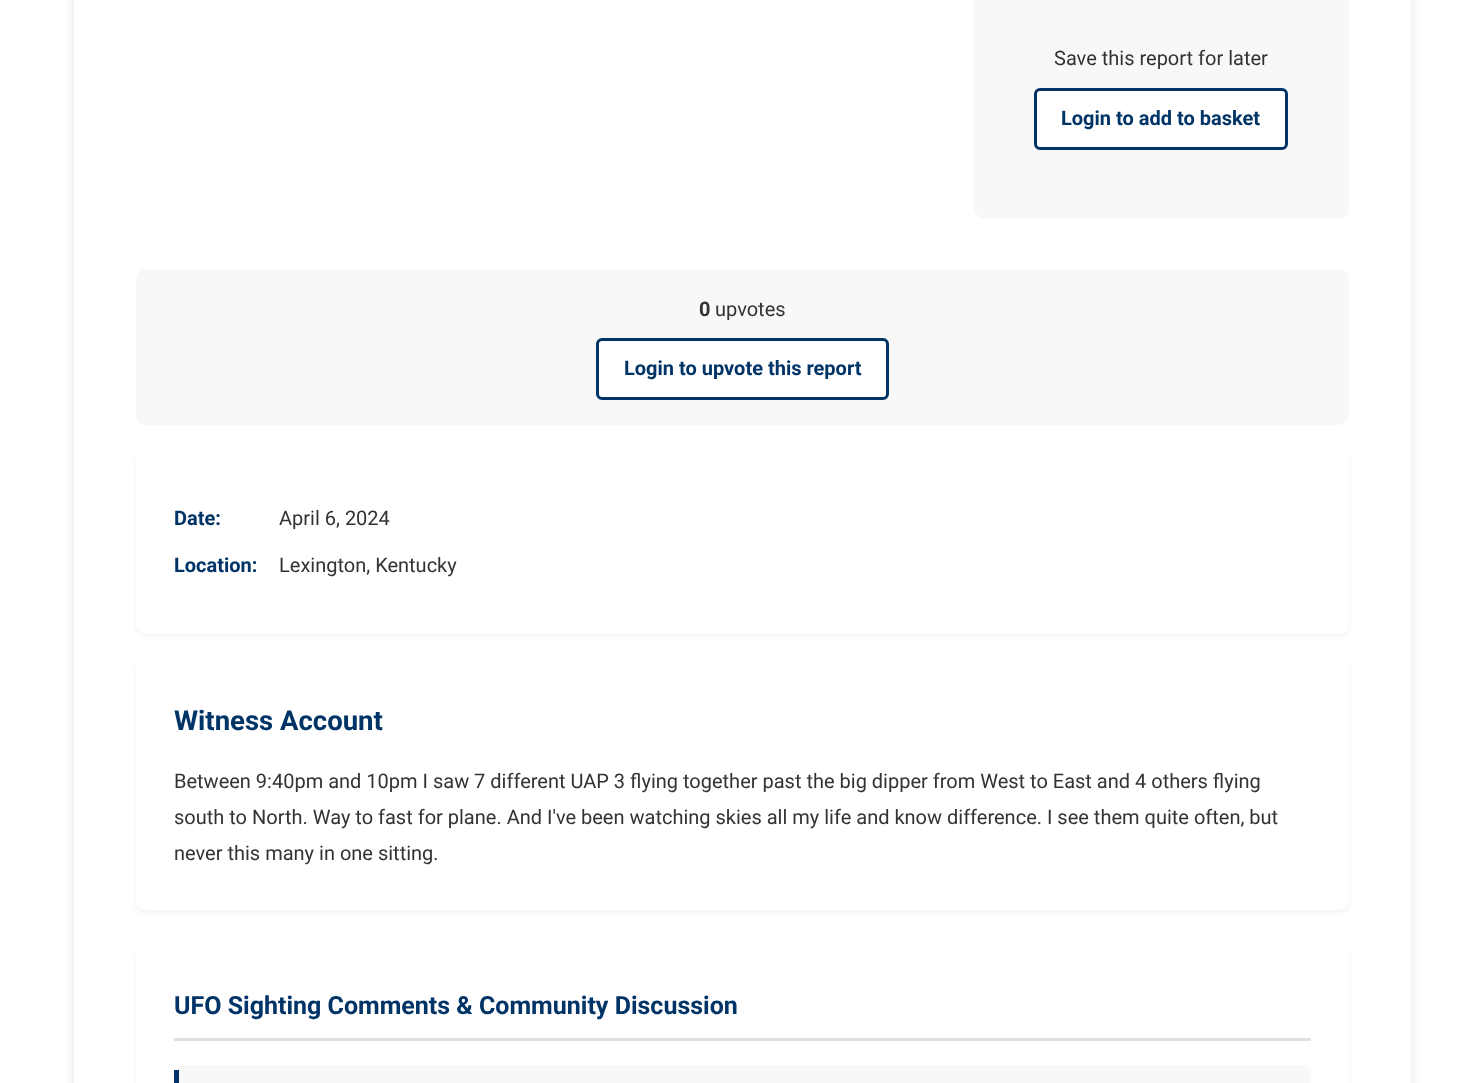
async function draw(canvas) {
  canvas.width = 1484;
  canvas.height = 1083;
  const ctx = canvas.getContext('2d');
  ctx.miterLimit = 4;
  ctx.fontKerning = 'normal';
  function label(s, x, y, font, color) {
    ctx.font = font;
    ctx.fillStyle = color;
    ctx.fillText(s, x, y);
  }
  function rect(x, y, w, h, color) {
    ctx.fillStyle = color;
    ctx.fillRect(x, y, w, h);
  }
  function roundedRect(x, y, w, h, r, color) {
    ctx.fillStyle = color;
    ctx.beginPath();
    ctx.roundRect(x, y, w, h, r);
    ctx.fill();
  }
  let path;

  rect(0, 0, 1484, 1083, '#fff');
  ctx.save();
  path = new Path2D('M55 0H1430V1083H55ZM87-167H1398C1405-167 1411-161 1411-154V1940C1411 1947 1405 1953 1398 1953H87C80 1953 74 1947 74 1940V-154C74-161 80-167 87-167Z');
  ctx.clip(path, 'evenodd');
  ctx.fillStyle = '#0000001a';
  ctx.filter = 'blur(6px)';
  ctx.beginPath();
  ctx.roundRect(74, -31, 1337, 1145, 13);
  ctx.fill();
  ctx.filter = 'none';
  ctx.restore();
  roundedRect(974, -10, 375, 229, 10, '#f8f8f8');
  label('Save this report for later', 1054, 65, '20px Roboto', '#333');
  ctx.fillStyle = '#fff';
  ctx.beginPath();
  ctx.roundRect(1035.5, 89.5, 251, 59, 4.5);
  ctx.fill();
  ctx.strokeStyle = '#036';
  ctx.lineWidth = 3;
  ctx.stroke();
  label('Login to add to basket', 1061, 125, 'bold 20px Roboto', '#036');
  roundedRect(136, 269, 1213, 156, 10, '#f8f8f8');
  label('0', 699, 316, 'bold 20px Roboto', '#333');
  label('upvotes', 715, 316, '20px Roboto', '#333');
  ctx.fillStyle = '#fff';
  ctx.beginPath();
  ctx.roundRect(597.5, 339.5, 290, 59, 4.5);
  ctx.fill();
  ctx.stroke();
  label('Login to upvote this report', 624, 375, 'bold 20px Roboto', '#036');
  ctx.fillStyle = '#0000000d';
  ctx.filter = 'blur(2.5px)';
  ctx.beginPath();
  ctx.roundRect(136, 453, 1213, 183, 10);
  ctx.fill();
  ctx.filter = 'none';
  roundedRect(136, 450, 1213, 184, 10, '#fff');
  label('Date:', 174, 525, 'bold 20px Roboto', '#036');
  label('April 6, 2024', 279, 525, '20px Roboto', '#333');
  label('Location:', 174, 572, 'bold 20px Roboto', '#036');
  label('Lexington, Kentucky', 279, 572, '20px Roboto', '#333');
  ctx.fillStyle = '#0000000d';
  ctx.filter = 'blur(2.5px)';
  ctx.beginPath();
  ctx.roundRect(136, 661, 1213, 252, 10);
  ctx.fill();
  ctx.filter = 'none';
  roundedRect(136, 659, 1213, 251, 10, '#fff');
  label('Witness Account', 174, 730, 'bold 27.5px Roboto', '#036');
  label('Between 9:40pm and 10pm I saw 7 different UAP 3 flying together past the big dipper from West to East and 4 others flying', 174, 788, '20px Roboto', '#333');
  label('south to North. Way to fast for plane. And I\'ve been watching skies all my life and know difference. I see them quite often, but', 174, 824, '20px Roboto', '#333');
  label('never this many in one sitting.', 174, 860, '20px Roboto', '#333');
  ctx.fillStyle = '#0000000d';
  ctx.filter = 'blur(2.5px)';
  ctx.beginPath();
  ctx.roundRect(136, 950, 1213, 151, 10);
  ctx.fill();
  ctx.filter = 'none';
  roundedRect(136, 948, 1213, 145, 10, '#fff');
  rect(174, 1038, 1137, 3, '#e0e0e0');
  label('UFO Sighting Comments & Community Discussion', 174, 1014, 'bold 25px Roboto', '#036');
  roundedRect(174, 1065, 1137, 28, 10, '#f8f8f8');
  rect(174, 1070, 5, 13, '#036');
}

draw(document.querySelector('canvas'));
